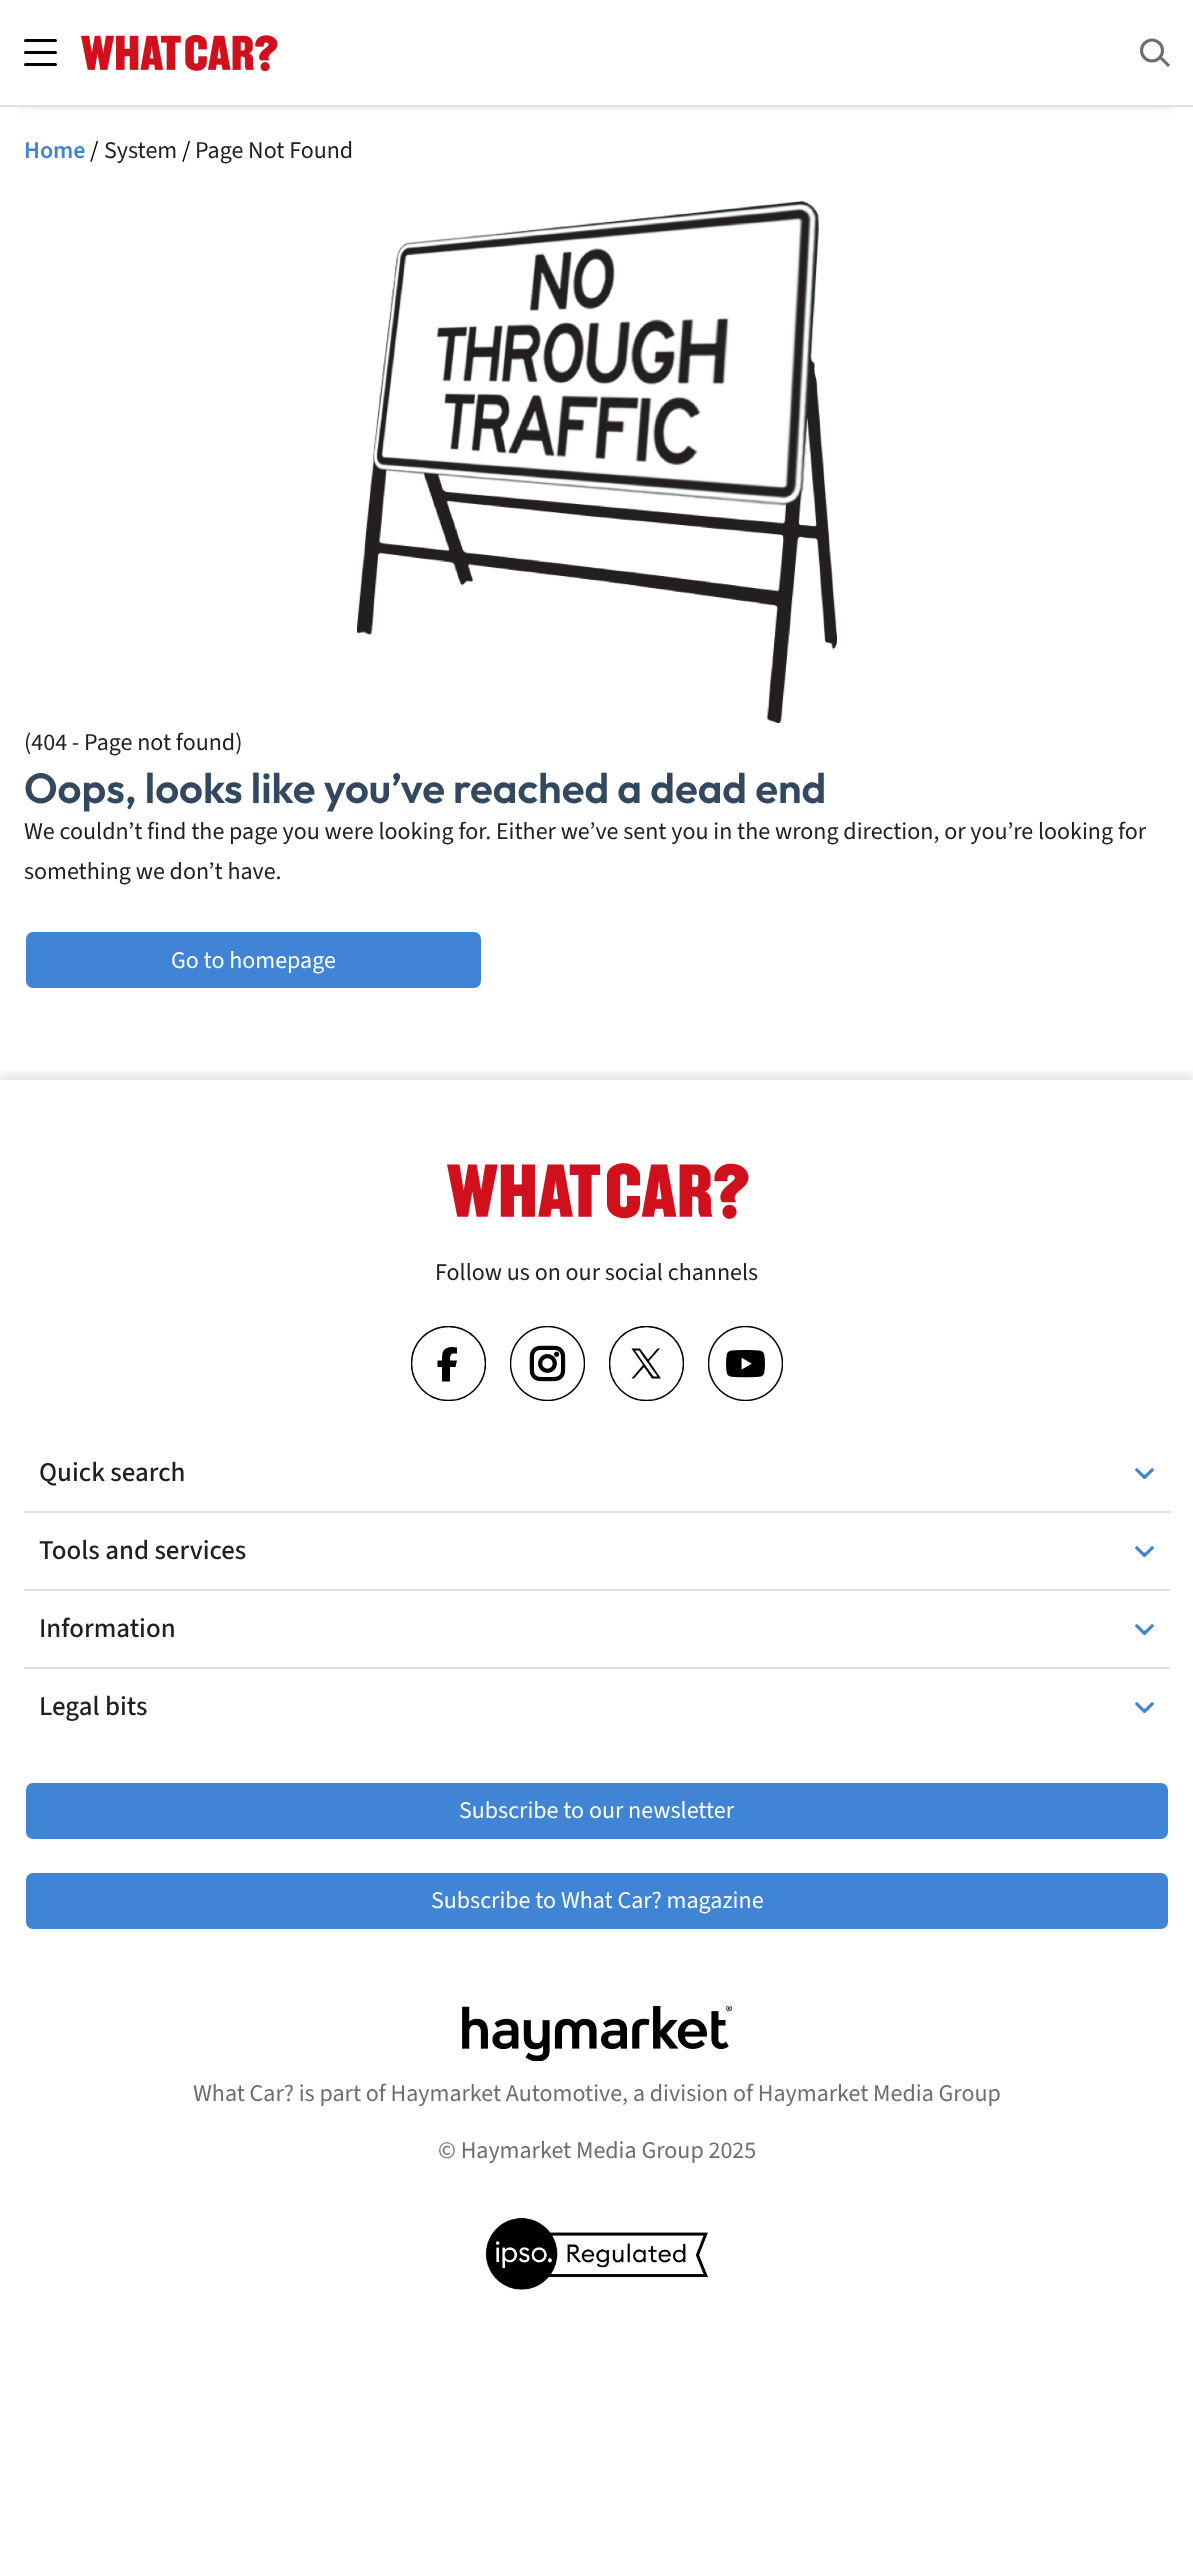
async function draw(canvas) {
  canvas.width = 1193;
  canvas.height = 2555;
  const ctx = canvas.getContext('2d');
  ctx.miterLimit = 4;
  ctx.fontKerning = 'normal';
  function label(s, x, y, font, color) {
    ctx.font = font;
    ctx.fillStyle = color;
    ctx.fillText(s, x, y);
  }
  function rect(x, y, w, h, color) {
    ctx.fillStyle = color;
    ctx.fillRect(x, y, w, h);
  }
  async function image(src, x, y, w, h) {
    const img = new Image();
    img.src = src;
    await img.decode();
    ctx.drawImage(img, x, y, w, h);
  }
  let path;

  rect(0, 0, 1193, 2555, '#fff');
  ctx.save();
  ctx.beginPath();
  ctx.rect(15, 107, 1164, 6);
  ctx.clip();
  ctx.fillStyle = '#202020';
  ctx.filter = 'blur(9px)';
  ctx.beginPath();
  ctx.rect(21, 57, 1152, 38);
  ctx.fill();
  ctx.filter = 'none';
  ctx.restore();
  rect(0, 105, 1193, 2, '#e0e0e0');
  path = new Path2D('M25.5 40.5H55.5M25.5 52.5H55.5M25.5 64.5H55.5');
  ctx.strokeStyle = '#000';
  ctx.lineWidth = 3;
  ctx.lineCap = 'round';
  ctx.stroke(path);
  await image('assets/img1.png', 81, 35, 197, 36);
  ctx.beginPath();
  ctx.arc(1152, 50.5, 10.5, 0, 2 * Math.PI);
  ctx.strokeStyle = '#6d6d6d';
  ctx.lineWidth = 3.1;
  ctx.stroke();
  path = new Path2D('M1161 58L1169 66');
  ctx.lineCap = 'butt';
  ctx.stroke(path);
  label('Home', 24, 158, '600 24px "Source Sans 3"', '#3f84d5');
  label('/', 90, 158, '24px "Source Sans 3"', '#000');
  label('System', 104, 158, '24px "Source Sans 3"', '#202020');
  label('/', 182, 158, '24px "Source Sans 3"', '#000');
  label('Page Not Found', 195, 158, '24px "Source Sans 3"', '#202020');
  await image('assets/img2.png', 357, 201, 480, 522);
  label('(404 - Page not found)', 24, 750, '24px "Source Sans 3"', '#202020');
  label('Oops, looks like you’ve reached a dead end', 24, 803, '600 42px Outfit', '#33475f');
  label('We couldn’t find the page you were looking for. Either we’ve sent you in the wrong direction, or you’re looking for', 24, 839, '24px "Source Sans 3"', '#202020');
  label('something we don’t have.', 24, 879, '24px "Source Sans 3"', '#202020');
  ctx.fillStyle = '#3f84d5';
  ctx.beginPath();
  ctx.roundRect(25, 931, 457, 58, 8);
  ctx.fill();
  ctx.strokeStyle = '#fff';
  ctx.lineWidth = 2;
  ctx.stroke();
  label('Go to homepage', 171, 968, '24px "Source Sans 3"', '#fff');
  ctx.save();
  ctx.beginPath();
  ctx.rect(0, 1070, 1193, 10);
  ctx.clip();
  ctx.fillStyle = '#2020201a';
  ctx.filter = 'blur(4px)';
  ctx.beginPath();
  ctx.rect(0, 1073, 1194, 1345);
  ctx.fill();
  ctx.filter = 'none';
  ctx.restore();
  await image('assets/img3.png', 447, 1163, 302, 56);
  label('Follow us on our social channels', 435, 1280, '24px "Source Sans 3"', '#202020');
  ctx.save();
  ctx.beginPath();
  ctx.rect(411, 1326, 75, 75);
  ctx.clip();
  ctx.beginPath();
  ctx.arc(448.5, 1363.5, 37, 0, 2 * Math.PI);
  ctx.strokeStyle = '#000';
  ctx.lineWidth = 1.5;
  ctx.stroke();
  ctx.restore();
  ctx.fillStyle = '#000';
  path = new Path2D('M455.5 1367L457 1360.5H450C450 1354 451 1353 457 1353.5V1347.5C452 1346.5 444.5 1346.5 442.5 1353C442 1355.5 442 1358 442 1360.5H437.5V1367H442V1381.5H450V1367Z');
  ctx.fill(path);
  await image('assets/img4.png', 510, 1326, 75, 75);
  ctx.save();
  ctx.beginPath();
  ctx.rect(609, 1326, 75, 75);
  ctx.clip();
  ctx.beginPath();
  ctx.arc(646.5, 1363.5, 37, 0, 2 * Math.PI);
  ctx.strokeStyle = '#000';
  ctx.lineWidth = 1.5;
  ctx.stroke();
  ctx.restore();
  path = new Path2D('M649 1361L660 1348.5H657.5L648 1359.5L640 1348.5H631.5L643 1365L631.5 1378.5H634L644 1367L652 1378.5H661ZM645.5 1365.5L635 1350.5H639L657.5 1376.5H653.5Z');
  ctx.fill(path);
  await image('assets/img5.png', 708, 1326, 75, 75);
  label('Quick search', 39, 1481, '500 27px "Source Sans 3"', '#202020');
  ctx.save();
  ctx.beginPath();
  ctx.roundRect(1134, 1467, 21, 12, 6);
  ctx.clip();
  path = new Path2D('M1144.5 1477.5L1145 1478.5L1144.5 1477.5L1144 1478.5L1144.5 1477.5L1135 1468L1144.5 1477.5L1154 1468Z');
  ctx.strokeStyle = '#3f84d5';
  ctx.lineWidth = 3.1;
  ctx.lineCap = 'round';
  ctx.stroke(path);
  ctx.restore();
  rect(24, 1511, 1146, 2, '#e0e0e0');
  label('Tools and services', 39, 1559, '500 27px "Source Sans 3"', '#202020');
  ctx.save();
  ctx.beginPath();
  ctx.roundRect(1134, 1545, 21, 12, 6);
  ctx.clip();
  path = new Path2D('M1144.5 1555.5L1145 1556.5L1144.5 1555.5L1144 1556.5L1144.5 1555.5L1135 1546L1144.5 1555.5L1154 1546Z');
  ctx.strokeStyle = '#3f84d5';
  ctx.lineWidth = 3.1;
  ctx.lineCap = 'round';
  ctx.stroke(path);
  ctx.restore();
  rect(24, 1589, 1146, 2, '#e0e0e0');
  label('Information', 39, 1637, '500 27px "Source Sans 3"', '#202020');
  ctx.save();
  ctx.beginPath();
  ctx.roundRect(1134, 1623, 21, 12, 6);
  ctx.clip();
  path = new Path2D('M1144.5 1633.5L1145 1634.5L1144.5 1633.5L1144 1634.5L1144.5 1633.5L1135 1624L1144.5 1633.5L1154 1624Z');
  ctx.strokeStyle = '#3f84d5';
  ctx.lineWidth = 3.1;
  ctx.lineCap = 'round';
  ctx.stroke(path);
  ctx.restore();
  rect(24, 1667, 1146, 2, '#e0e0e0');
  label('Legal bits', 39, 1715, '500 27px "Source Sans 3"', '#202020');
  ctx.save();
  ctx.beginPath();
  ctx.roundRect(1134, 1701, 21, 12, 6);
  ctx.clip();
  path = new Path2D('M1144.5 1711.5L1145 1712.5L1144.5 1711.5L1144 1712.5L1144.5 1711.5L1135 1702L1144.5 1711.5L1154 1702Z');
  ctx.strokeStyle = '#3f84d5';
  ctx.lineWidth = 3.1;
  ctx.lineCap = 'round';
  ctx.stroke(path);
  ctx.restore();
  ctx.fillStyle = '#3f84d5';
  ctx.beginPath();
  ctx.roundRect(25, 1782, 1144, 58, 8);
  ctx.fill();
  ctx.stroke();
  label('Subscribe to our newsletter', 459, 1818, '24px "Source Sans 3"', '#fff');
  ctx.fillStyle = '#3f84d5';
  ctx.beginPath();
  ctx.roundRect(25, 1872, 1144, 58, 8);
  ctx.fill();
  ctx.stroke();
  label('Subscribe to What Car? magazine', 431, 1908, '24px "Source Sans 3"', '#fff');
  await image('assets/img6.png', 462, 2006, 270, 55);
  label('What Car? is part of Haymarket Automotive, a division of Haymarket Media Group', 193, 2101, '24px "Source Sans 3"', '#6d6d6d');
  label('© Haymarket Media Group 2025', 438, 2158, '24px "Source Sans 3"', '#6d6d6d');
  await image('assets/img7.png', 485, 2217, 224, 73);
}

draw(document.querySelector('canvas'));
